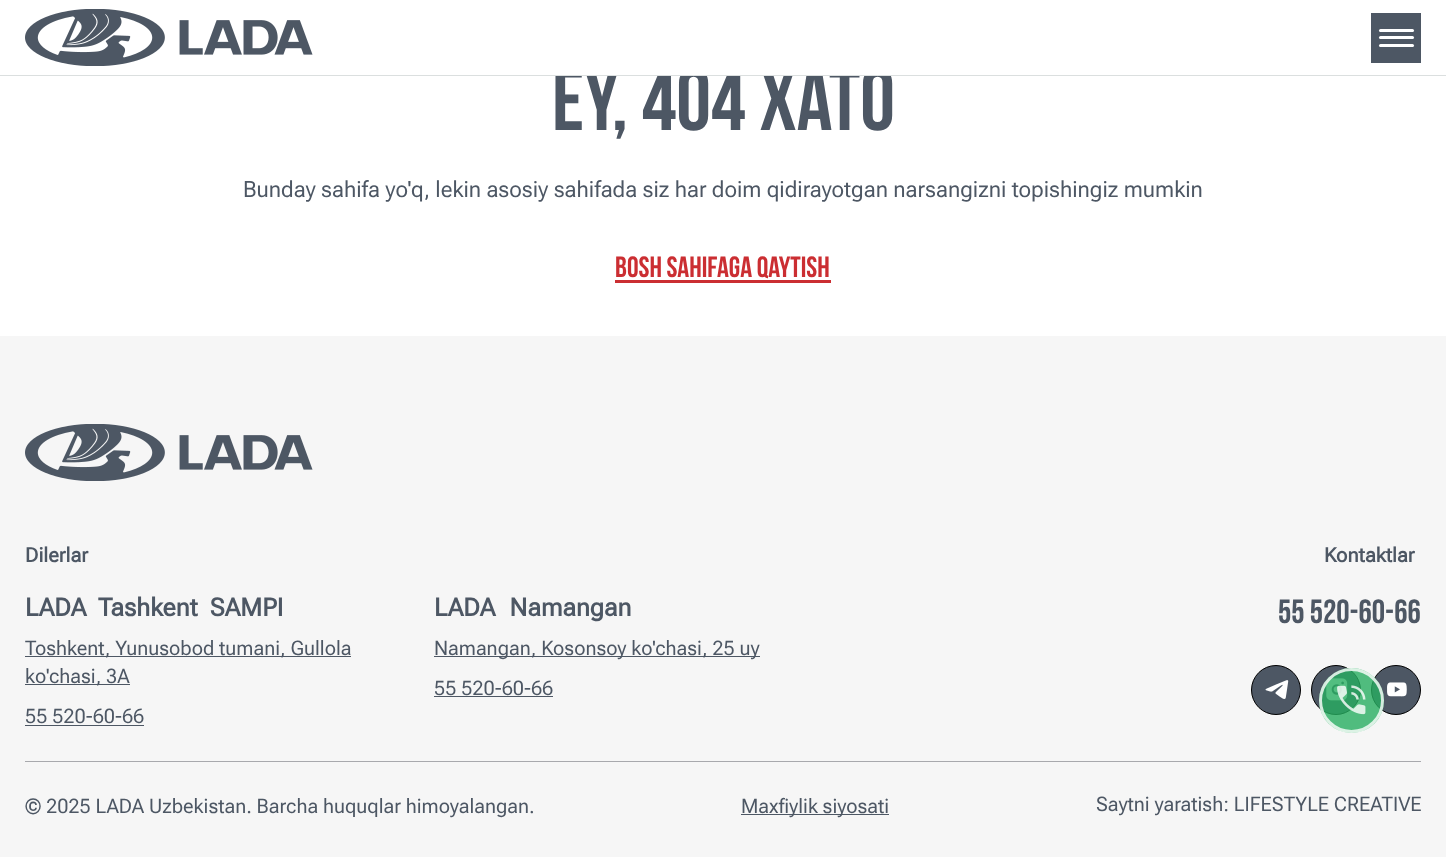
async function draw(canvas) {
  canvas.width = 1446;
  canvas.height = 857;
  const ctx = canvas.getContext('2d');
  ctx.miterLimit = 4;
  ctx.fontKerning = 'normal';
  function label(s, x, y, font, color) {
    ctx.font = font;
    ctx.fillStyle = color;
    ctx.fillText(s, x, y);
  }
  function rect(x, y, w, h, color) {
    ctx.fillStyle = color;
    ctx.fillRect(x, y, w, h);
  }
  function roundedRect(x, y, w, h, r, color) {
    ctx.fillStyle = color;
    ctx.beginPath();
    ctx.roundRect(x, y, w, h, r);
    ctx.fill();
  }
  async function image(src, x, y, w, h) {
    const img = new Image();
    img.src = src;
    await img.decode();
    ctx.drawImage(img, x, y, w, h);
  }

  rect(0, 0, 1446, 857, '#fff');
  label('ey, 404 xato', 552, 130, 'bold 87.5px Bebas Neue', '#4d5764');
  rect(555, 68, 336, 7, '#fff');
  rect(0, 75, 1446, 1, '#dbdfdf');
  await image('assets/img1.png', 25, 9, 288, 57);
  rect(1371, 13, 50, 50, '#4d5764');
  roundedRect(1379, 29, 35, 3, 1.5, '#fff');
  roundedRect(1379, 36, 35, 3, 1.5, '#fff');
  roundedRect(1379, 44, 35, 3, 1.5, '#fff');
  label('Bunday sahifa yo\'q, lekin asosiy sahifada siz har doim qidirayotgan narsangizni topishingiz mumkin', 243, 197, '22.5px Roboto Flex', '#4d5764');
  label('Bosh sahifaga qaytish', 615, 277, 'bold 29.25px Bebas Neue', '#cb2e32');
  rect(615, 280, 216, 3, '#cb2e32');
  rect(0, 336, 1446, 521, '#f6f6f6');
  rect(25, 761, 1396, 1, '#a8a9ad');
  await image('assets/img2.png', 25, 424, 288, 57);
  label('Dilerlar', 25, 562, 'bold 20px Roboto Flex', '#4d5764');
  ctx.wordSpacing = '6px';
  label('LADA Tashkent SAMPI', 25, 616, 'bold 25px Roboto Flex', '#4d5764');
  rect(25, 656, 326, 1, '#4d5764');
  ctx.wordSpacing = '0px';
  label('Toshkent, Yunusobod tumani, Gullola', 25, 655, '20px "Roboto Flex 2"', '#4d5764');
  rect(25, 684, 105, 1, '#4d5764');
  label('ko\'chasi, 3A', 25, 683, '20px "Roboto Flex 2"', '#4d5764');
  label('55 520-60-66', 25, 723, '20px "Roboto Flex 2"', '#4d5764');
  rect(25, 725, 119, 1, '#4d5764');
  ctx.wordSpacing = '8px';
  label('LADA Namangan', 434, 616, 'bold 25px Roboto Flex', '#4d5764');
  rect(434, 656, 326, 1, '#4d5764');
  ctx.wordSpacing = '0px';
  label('Namangan, Kosonsoy ko\'chasi, 25 uy', 434, 655, '20px "Roboto Flex 2"', '#4d5764');
  label('55 520-60-66', 434, 695, '20px "Roboto Flex 2"', '#4d5764');
  rect(434, 696, 119, 1, '#4d5764');
  label('Kontaktlar', 1324, 562, 'bold 20px Roboto Flex', '#4d5764');
  label('55 520-60-66', 1278, 623, 'bold 33.5px Bebas Neue', '#4d5764');
  ctx.beginPath();
  ctx.arc(1276, 690, 24.5, 0, 2 * Math.PI);
  ctx.fill();
  ctx.strokeStyle = '#000';
  ctx.stroke();
  await image('assets/img3.png', 1265, 680, 24, 19);
  ctx.beginPath();
  ctx.arc(1336, 690, 24.5, 0, 2 * Math.PI);
  ctx.fill();
  ctx.stroke();
  await image('assets/img4.png', 1326, 678, 22, 23);
  ctx.beginPath();
  ctx.arc(1396, 690, 24.5, 0, 2 * Math.PI);
  ctx.fill();
  ctx.stroke();
  await image('assets/img5.png', 1387, 682, 20, 15);
  label('© 2025 LADA Uzbekistan. Barcha huquqlar himoyalangan.', 25, 813, '20px "Roboto Flex 2"', '#4d5764');
  rect(741, 814, 148, 1, '#4d5764');
  label('Maxfiylik siyosati', 741, 813, '20px "Roboto Flex 2"', '#4d5764');
  label('Saytni yaratish: LIFESTYLE CREATIVE', 1096, 811, '20px "Roboto Flex 2"', '#4d5764');
  ctx.fillStyle = '#27ae60cc';
  ctx.beginPath();
  ctx.arc(1351.5, 700.5, 32.5, 0, 2 * Math.PI);
  ctx.fill();
  ctx.beginPath();
  ctx.arc(1351.5, 700.5, 31, 0, 2 * Math.PI);
  ctx.strokeStyle = '#ffffffcc';
  ctx.lineWidth = 3;
  ctx.stroke();
  await image('assets/img6.png', 1337, 685, 29, 30);
}

draw(document.querySelector('canvas'));
